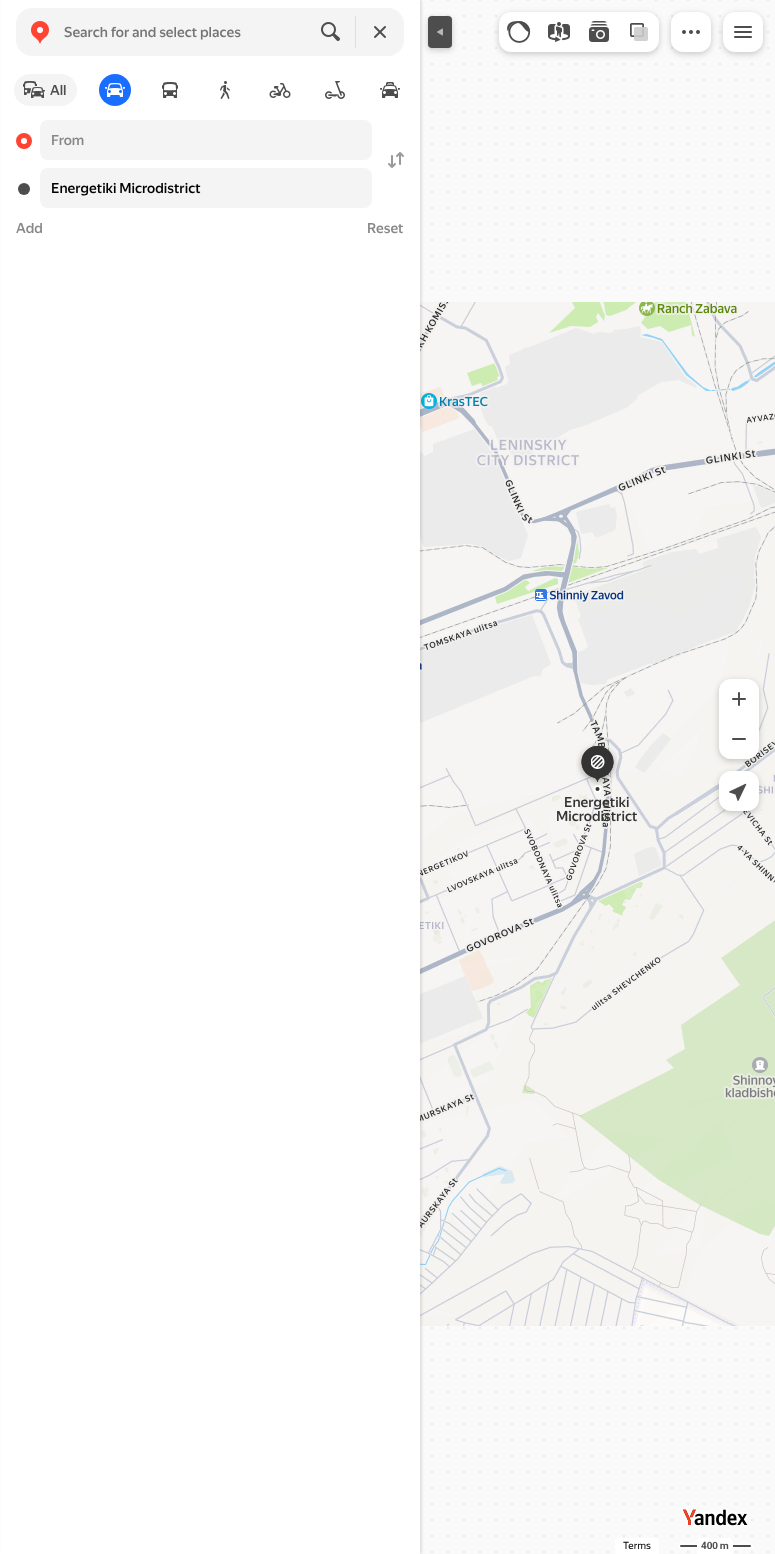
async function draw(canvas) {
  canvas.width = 775;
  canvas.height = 1554;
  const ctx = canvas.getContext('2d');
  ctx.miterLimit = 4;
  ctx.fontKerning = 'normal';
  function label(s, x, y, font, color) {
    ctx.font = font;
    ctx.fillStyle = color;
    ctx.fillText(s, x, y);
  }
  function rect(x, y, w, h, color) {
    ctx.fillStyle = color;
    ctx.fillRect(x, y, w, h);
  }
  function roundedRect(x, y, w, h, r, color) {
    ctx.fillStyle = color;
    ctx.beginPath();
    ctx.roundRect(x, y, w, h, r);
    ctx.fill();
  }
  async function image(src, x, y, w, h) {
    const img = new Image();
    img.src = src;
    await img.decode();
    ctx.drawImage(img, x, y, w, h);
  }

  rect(0, 0, 775, 1554, '#fff');
  await image('assets/img1.png', 420, 0, 355, 1554);
  await image('assets/img24.png', 420, 302, 159, 256);
  await image('assets/img26.png', 420, 558, 159, 256);
  await image('assets/img28.png', 420, 814, 159, 256);
  await image('assets/img30.png', 420, 1070, 159, 256);
  ctx.fillStyle = '#0000001a';
  ctx.filter = 'blur(1px)';
  ctx.beginPath();
  ctx.rect(2, 0, 420, 1554);
  ctx.fill();
  ctx.filter = 'none';
  ctx.fillStyle = '#00000033';
  ctx.filter = 'blur(3px)';
  ctx.beginPath();
  ctx.roundRect(428, 18, 24, 32, 4);
  ctx.fill();
  ctx.filter = 'none';
  rect(1, 0, 419, 1554, '#fff');
  roundedRect(16, 8, 388, 48, 16, '#f4f4f4');
  await image('assets/img2.png', 31, 21, 18, 23);
  label('Search for and select places', 64, 37, '500 14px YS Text', '#757575');
  await image('assets/img3.png', 321, 22, 19, 19);
  rect(355, 16, 1, 32, '#e0e0e0');
  await image('assets/img4.png', 374, 26, 12, 12);
  ctx.fillStyle = '#00000033';
  ctx.filter = 'blur(3px)';
  ctx.beginPath();
  ctx.roundRect(499, 14, 160, 40, 12);
  ctx.fill();
  ctx.filter = 'none';
  ctx.fillStyle = '#fff';
  ctx.beginPath();
  ctx.roundRect(499, 12, 40, 40, [12, 0, 0, 12]);
  ctx.fill();
  await image('assets/img5.png', 507, 21, 24, 22);
  rect(539, 12, 80, 40, '#fff');
  await image('assets/img6.png', 548, 22, 22, 20);
  ctx.beginPath();
  ctx.roundRect(619, 12, 40, 40, [0, 12, 12, 0]);
  ctx.fill();
  await image('assets/img7.png', 630, 23, 18, 18);
  await image('assets/img8.png', 589, 21, 20, 21);
  ctx.fillStyle = '#00000033';
  ctx.filter = 'blur(3px)';
  ctx.beginPath();
  ctx.roundRect(671, 14, 40, 40, 12);
  ctx.fill();
  ctx.filter = 'none';
  roundedRect(671, 12, 40, 40, 12, '#fff');
  await image('assets/img9.png', 682, 30, 18, 4);
  ctx.fillStyle = '#00000033';
  ctx.filter = 'blur(3px)';
  ctx.beginPath();
  ctx.roundRect(723, 14, 40, 40, 12);
  ctx.fill();
  ctx.filter = 'none';
  roundedRect(723, 12, 40, 40, 12, '#fff');
  await image('assets/img10.png', 734, 26, 18, 12);
  await image('assets/img27.png', 579, 558, 196, 256);
  ctx.fillStyle = '#00000033';
  ctx.filter = 'blur(3px)';
  ctx.beginPath();
  ctx.roundRect(719, 681, 40, 80, 12);
  ctx.fill();
  ctx.filter = 'none';
  ctx.fillStyle = '#fff';
  ctx.beginPath();
  ctx.roundRect(719, 679, 40, 40, [12, 12, 0, 0]);
  ctx.fill();
  await image('assets/img11.png', 732, 692, 14, 14);
  ctx.beginPath();
  ctx.roundRect(719, 719, 40, 40, [0, 0, 12, 12]);
  ctx.fill();
  await image('assets/img12.png', 732, 738, 14, 2);
  await image('assets/img29.png', 579, 814, 196, 256);
  ctx.fillStyle = '#00000033';
  ctx.filter = 'blur(3px)';
  ctx.beginPath();
  ctx.roundRect(719, 773, 40, 40, 12);
  ctx.fill();
  ctx.filter = 'none';
  roundedRect(719, 771, 40, 40, 12, '#fff');
  await image('assets/img13.png', 729, 783, 18, 18);
  roundedRect(428, 16, 24, 32, 4, '#4d4d4d');
  await image('assets/img14.png', 437, 28, 6, 8);
  roundedRect(14, 74, 63, 32, 16, '#f4f4f4');
  await image('assets/img15.png', 23, 81, 22, 17);
  label('All', 50, 95, '500 14px YS Text', '#4d4d4d');
  ctx.fillStyle = '#196dff';
  ctx.beginPath();
  ctx.arc(115, 90, 16, 0, 2 * Math.PI);
  ctx.fill();
  await image('assets/img16.png', 105, 83, 20, 14);
  await image('assets/img17.png', 162, 82, 16, 16);
  await image('assets/img18.png', 220, 81, 10, 18);
  await image('assets/img19.png', 269, 83, 22, 15);
  await image('assets/img20.png', 325, 81, 20, 18);
  await image('assets/img21.png', 380, 82, 20, 16);
  ctx.fillStyle = '#f43';
  ctx.beginPath();
  ctx.arc(24, 141, 7, 0, 2 * Math.PI);
  ctx.fill();
  ctx.strokeStyle = '#f43';
  ctx.lineWidth = 2;
  ctx.stroke();
  ctx.fillStyle = '#fff';
  ctx.beginPath();
  ctx.arc(24, 141, 3, 0, 2 * Math.PI);
  ctx.fill();
  roundedRect(40, 120, 332, 40, 8, '#f4f4f4');
  label('From', 51, 145, '500 14px YS Text', '#878787');
  ctx.fillStyle = '#4d4d4d';
  ctx.beginPath();
  ctx.arc(24, 189, 6, 0, 2 * Math.PI);
  ctx.fill();
  roundedRect(40, 168, 332, 40, 8, '#f4f4f4');
  label('Energetiki Microdistrict', 51, 193, '500 14px YS Text', '#000');
  await image('assets/img22.png', 388, 152, 16, 16);
  label('Add', 16, 233, '500 14px YS Text', '#878787');
  label('Reset', 367, 233, '500 14px YS Text', '#878787');
  await image('assets/img23.png', 683, 1509, 65, 17);
  ctx.fillStyle = '#fff';
  ctx.beginPath();
  ctx.roundRect(615, 1538, 44, 16, [4, 4, 0, 0]);
  ctx.fill();
  label('Terms', 623, 1549, '10px YS Text', '#000');
  roundedRect(678, 1543, 75, 6, 3, '#fdfdfd');
  roundedRect(680, 1545, 71, 2, 1, '#4d4d4d');
  ctx.fillStyle = '#fff';
  ctx.beginPath();
  ctx.roundRect(697, 1538, 36, 16, [4, 4, 0, 0]);
  ctx.fill();
  label('400 m', 701, 1549, 'bold 10px YS Text', '#4d4d4d');
  await image('assets/img25.png', 579, 302, 196, 256);
  await image('assets/img31.png', 579, 1070, 196, 256);
  await image('assets/img32.png', 576, 743, 43, 50);
  await image('assets/img33.png', 591, 755, 14, 14);
  label('Energetiki', 564, 807, '500 14px YS Text', '#333');
  label('Microdistrict', 556, 821, '500 14px YS Text', '#333');
}

draw(document.querySelector('canvas'));
